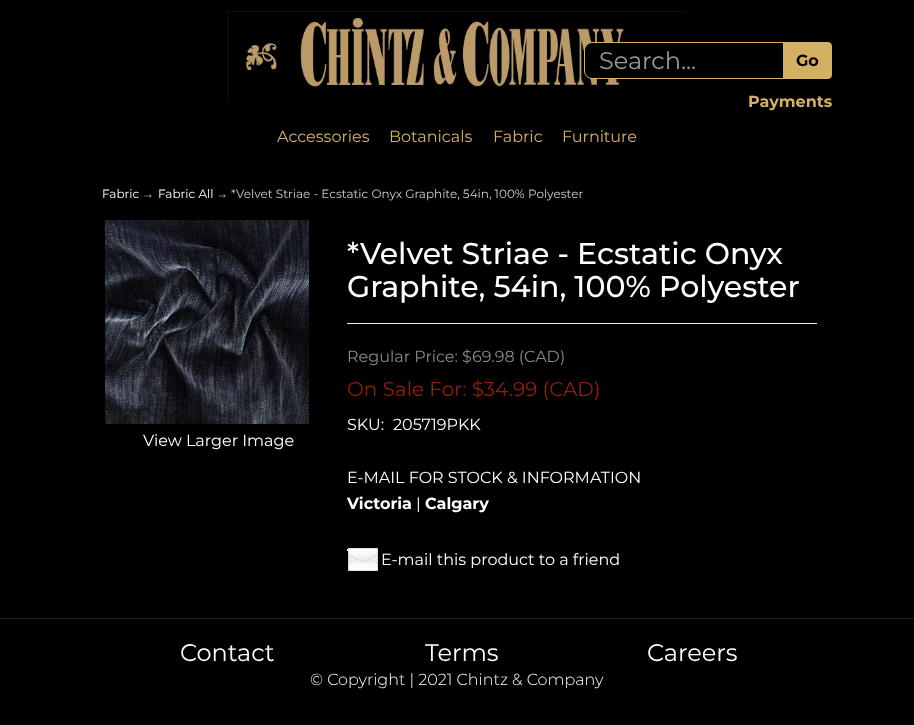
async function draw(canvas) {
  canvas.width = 914;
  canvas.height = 725;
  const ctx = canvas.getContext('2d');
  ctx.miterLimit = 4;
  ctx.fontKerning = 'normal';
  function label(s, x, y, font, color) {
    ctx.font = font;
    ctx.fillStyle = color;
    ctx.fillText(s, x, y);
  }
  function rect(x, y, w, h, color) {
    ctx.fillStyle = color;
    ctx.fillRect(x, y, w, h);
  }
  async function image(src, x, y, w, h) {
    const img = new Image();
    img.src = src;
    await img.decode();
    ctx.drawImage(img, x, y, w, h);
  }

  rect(0, 0, 914, 725, '#000');
  await image('assets/img1.png', 227, 11, 460, 91);
  ctx.beginPath();
  ctx.roundRect(584.5, 42.5, 199, 36, [7.5, 0, 0, 7.5]);
  ctx.fill();
  ctx.strokeStyle = '#d4b063';
  ctx.stroke();
  label('Search...', 599, 69, '24px Montserrat', '#999');
  ctx.fillStyle = '#d4b063';
  ctx.beginPath();
  ctx.roundRect(783.5, 42.5, 48, 36, [0, 3.5, 3.5, 0]);
  ctx.fill();
  ctx.stroke();
  label('Go', 796, 66, 'bold 16px Montserrat', '#000');
  label('Payments', 748, 107, 'bold 16px Montserrat', '#d4b063');
  label('Accessories', 277, 142, '16px Montserrat', '#d4b063');
  label('Botanicals', 389, 142, '16px Montserrat', '#d4b063');
  label('Fabric', 493, 142, '16px Montserrat', '#d4b063');
  label('Furniture', 562, 142, '16px Montserrat', '#d4b063');
  label('Fabric', 102, 198, '12px Montserrat', '#fff');
  label('→', 142, 198, '12px Liberation Sans', '#ccc');
  label('Fabric All', 158, 198, '12px Montserrat', '#fff');
  label('→', 216, 198, '12px Liberation Sans', '#ccc');
  label('*Velvet Striae - Ecstatic Onyx Graphite, 54in, 100% Polyester', 231, 198, '12px Montserrat', '#ccc');
  await image('assets/img2.png', 105, 220, 204, 204);
  label('View Larger Image', 143, 446, '16px Montserrat', '#fff');
  label('*Velvet Striae - Ecstatic Onyx', 347, 264, '500 30px Montserrat', '#fff');
  label('Graphite, 54in, 100% Polyester', 347, 297, '500 30px Montserrat', '#fff');
  rect(347, 323, 470, 1, '#eee');
  label('Regular Price: $69.98 (CAD)', 347, 362, '16px Montserrat', '#888');
  label('On Sale For: $34.99 (CAD)', 347, 396, '20px Montserrat', '#902003');
  label('SKU:', 347, 430, '16px Montserrat', '#fff');
  label('205719PKK', 393, 430, '16px Montserrat', '#fff');
  label('E-MAIL FOR STOCK & INFORMATION', 347, 483, '16px Montserrat', '#fff');
  label('Victoria', 347, 509, 'bold 16px Montserrat', '#fff');
  label('|', 416, 509, '16px Montserrat', '#fff');
  label('Calgary', 425, 509, 'bold 16px Montserrat', '#fff');
  await image('assets/img3.png', 347, 548, 31, 23);
  label('E-mail this product to a friend', 381, 565, '16px Montserrat', '#fff');
  rect(0, 618, 914, 1, '#1f201e');
  label('Contact', 180, 661, '24px Montserrat', '#fff');
  label('Terms', 425, 661, '24px Montserrat', '#fff');
  label('Careers', 647, 661, '24px Montserrat', '#fff');
  label('© Copyright | 2021 Chintz & Company', 310, 685, '300 16px Montserrat', '#fff');
}

draw(document.querySelector('canvas'));
